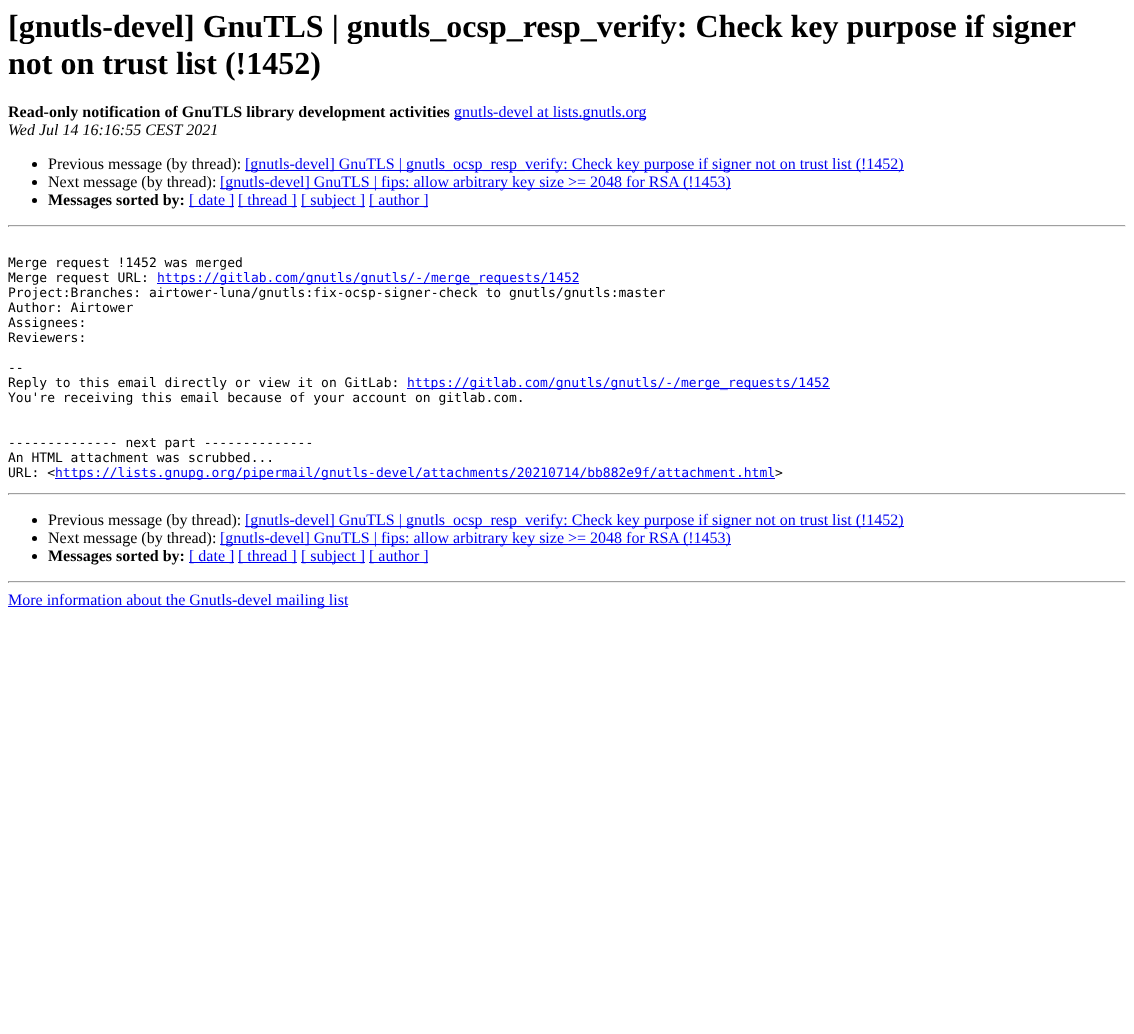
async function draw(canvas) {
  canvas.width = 1134;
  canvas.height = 1034;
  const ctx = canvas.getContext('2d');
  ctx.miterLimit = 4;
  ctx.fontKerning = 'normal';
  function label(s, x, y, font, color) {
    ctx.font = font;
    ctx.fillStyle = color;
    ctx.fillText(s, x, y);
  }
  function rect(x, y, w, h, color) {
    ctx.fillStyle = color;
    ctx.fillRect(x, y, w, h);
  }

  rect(0, 0, 1134, 1034, '#fff');
  label('[gnutls-devel] GnuTLS | gnutls_ocsp_resp_verify: Check key purpose if signer', 8, 37, 'bold 32px Liberation Serif', '#000');
  label('not on trust list (!1452)', 8, 74, 'bold 32px Liberation Serif', '#000');
  label('Read-only notification of GnuTLS library development activities', 8, 117, 'bold 16px Liberation Serif', '#000');
  rect(454, 118, 192, 1, '#00e');
  label('gnutls-devel at lists.gnutls.org', 454, 117, '16px Liberation Serif', '#00e');
  label('Wed Jul 14 16:16:55 CEST 2021', 8, 135, 'italic 16px Liberation Serif', '#000');
  ctx.beginPath();
  ctx.arc(34.5, 164.5, 2.5, 0, 2 * Math.PI);
  ctx.fill();
  label('Previous message (by thread):', 48, 169, '16px Liberation Serif', '#000');
  rect(245, 170, 659, 1, '#00e');
  label('[gnutls-devel] GnuTLS | gnutls_ocsp_resp_verify: Check key purpose if signer not on trust list (!1452)', 245, 169, '16px Liberation Serif', '#00e');
  ctx.fillStyle = '#000';
  ctx.beginPath();
  ctx.arc(34.5, 182.5, 2.5, 0, 2 * Math.PI);
  ctx.fill();
  label('Next message (by thread):', 48, 187, '16px Liberation Serif', '#000');
  rect(220, 188, 511, 1, '#00e');
  label('[gnutls-devel] GnuTLS | fips: allow arbitrary key size >= 2048 for RSA (!1453)', 220, 187, '16px Liberation Serif', '#00e');
  ctx.fillStyle = '#000';
  ctx.beginPath();
  ctx.arc(34.5, 200.5, 2.5, 0, 2 * Math.PI);
  ctx.fill();
  label('Messages sorted by:', 48, 205, 'bold 16px Liberation Serif', '#000');
  rect(189, 206, 45, 1, '#00e');
  label('[ date ]', 189, 205, '16px Liberation Serif', '#00e');
  rect(238, 206, 59, 1, '#00e');
  label('[ thread ]', 238, 205, '16px Liberation Serif', '#00e');
  rect(301, 206, 64, 1, '#00e');
  label('[ subject ]', 301, 205, '16px Liberation Serif', '#00e');
  rect(369, 206, 59, 1, '#00e');
  label('[ author ]', 369, 205, '16px Liberation Serif', '#00e');
  rect(8, 225, 1118, 1, '#9f9f9f');
  rect(1125, 225, 1, 2, '#eee');
  rect(8, 226, 1118, 1, '#eee');
  rect(8, 225, 1, 2, '#9f9f9f');
  label('Merge request !1452 was merged', 8, 267, '13px DejaVu Sans Mono', '#000');
  label('Merge request URL:', 8, 282, '13px DejaVu Sans Mono', '#000');
  rect(157, 283, 422, 1, '#00e');
  label('https://gitlab.com/gnutls/gnutls/-/merge_requests/1452', 157, 282, '13px DejaVu Sans Mono', '#00e');
  label('Project:Branches: airtower-luna/gnutls:fix-ocsp-signer-check to gnutls/gnutls:master', 8, 297, '13px DejaVu Sans Mono', '#000');
  label('Author: Airtower', 8, 312, '13px DejaVu Sans Mono', '#000');
  label('Assignees:', 8, 327, '13px DejaVu Sans Mono', '#000');
  label('Reviewers:', 8, 342, '13px DejaVu Sans Mono', '#000');
  label('--', 8, 372, '13px DejaVu Sans Mono', '#000');
  label('Reply to this email directly or view it on GitLab:', 8, 387, '13px DejaVu Sans Mono', '#000');
  rect(407, 388, 423, 1, '#00e');
  label('https://gitlab.com/gnutls/gnutls/-/merge_requests/1452', 407, 387, '13px DejaVu Sans Mono', '#00e');
  label('You\'re receiving this email because of your account on gitlab.com.', 8, 402, '13px DejaVu Sans Mono', '#000');
  label('-------------- next part --------------', 8, 447, '13px DejaVu Sans Mono', '#000');
  label('An HTML attachment was scrubbed...', 8, 462, '13px DejaVu Sans Mono', '#000');
  label('URL: <', 8, 477, '13px DejaVu Sans Mono', '#000');
  rect(55, 478, 720, 1, '#00e');
  label('https://lists.gnupg.org/pipermail/gnutls-devel/attachments/20210714/bb882e9f/attachment.html', 55, 477, '13px DejaVu Sans Mono', '#00e');
  label('>', 775, 477, '13px DejaVu Sans Mono', '#000');
  rect(8, 493, 1118, 1, '#9f9f9f');
  rect(1125, 493, 1, 2, '#eee');
  rect(8, 494, 1118, 1, '#eee');
  rect(8, 493, 1, 2, '#9f9f9f');
  ctx.fillStyle = '#000';
  ctx.beginPath();
  ctx.arc(34.5, 520.5, 2.5, 0, 2 * Math.PI);
  ctx.fill();
  label('Previous message (by thread):', 48, 525, '16px Liberation Serif', '#000');
  rect(245, 526, 659, 1, '#00e');
  label('[gnutls-devel] GnuTLS | gnutls_ocsp_resp_verify: Check key purpose if signer not on trust list (!1452)', 245, 525, '16px Liberation Serif', '#00e');
  ctx.fillStyle = '#000';
  ctx.beginPath();
  ctx.arc(34.5, 538.5, 2.5, 0, 2 * Math.PI);
  ctx.fill();
  label('Next message (by thread):', 48, 543, '16px Liberation Serif', '#000');
  rect(220, 544, 511, 1, '#00e');
  label('[gnutls-devel] GnuTLS | fips: allow arbitrary key size >= 2048 for RSA (!1453)', 220, 543, '16px Liberation Serif', '#00e');
  ctx.fillStyle = '#000';
  ctx.beginPath();
  ctx.arc(34.5, 556.5, 2.5, 0, 2 * Math.PI);
  ctx.fill();
  label('Messages sorted by:', 48, 561, 'bold 16px Liberation Serif', '#000');
  rect(189, 562, 45, 1, '#00e');
  label('[ date ]', 189, 561, '16px Liberation Serif', '#00e');
  rect(238, 562, 59, 1, '#00e');
  label('[ thread ]', 238, 561, '16px Liberation Serif', '#00e');
  rect(301, 562, 64, 1, '#00e');
  label('[ subject ]', 301, 561, '16px Liberation Serif', '#00e');
  rect(369, 562, 59, 1, '#00e');
  label('[ author ]', 369, 561, '16px Liberation Serif', '#00e');
  rect(8, 581, 1118, 1, '#9f9f9f');
  rect(1125, 581, 1, 2, '#eee');
  rect(8, 582, 1118, 1, '#eee');
  rect(8, 581, 1, 2, '#9f9f9f');
  rect(8, 606, 340, 1, '#00e');
  label('More information about the Gnutls-devel mailing list', 8, 605, '16px Liberation Serif', '#00e');
}

draw(document.querySelector('canvas'));
